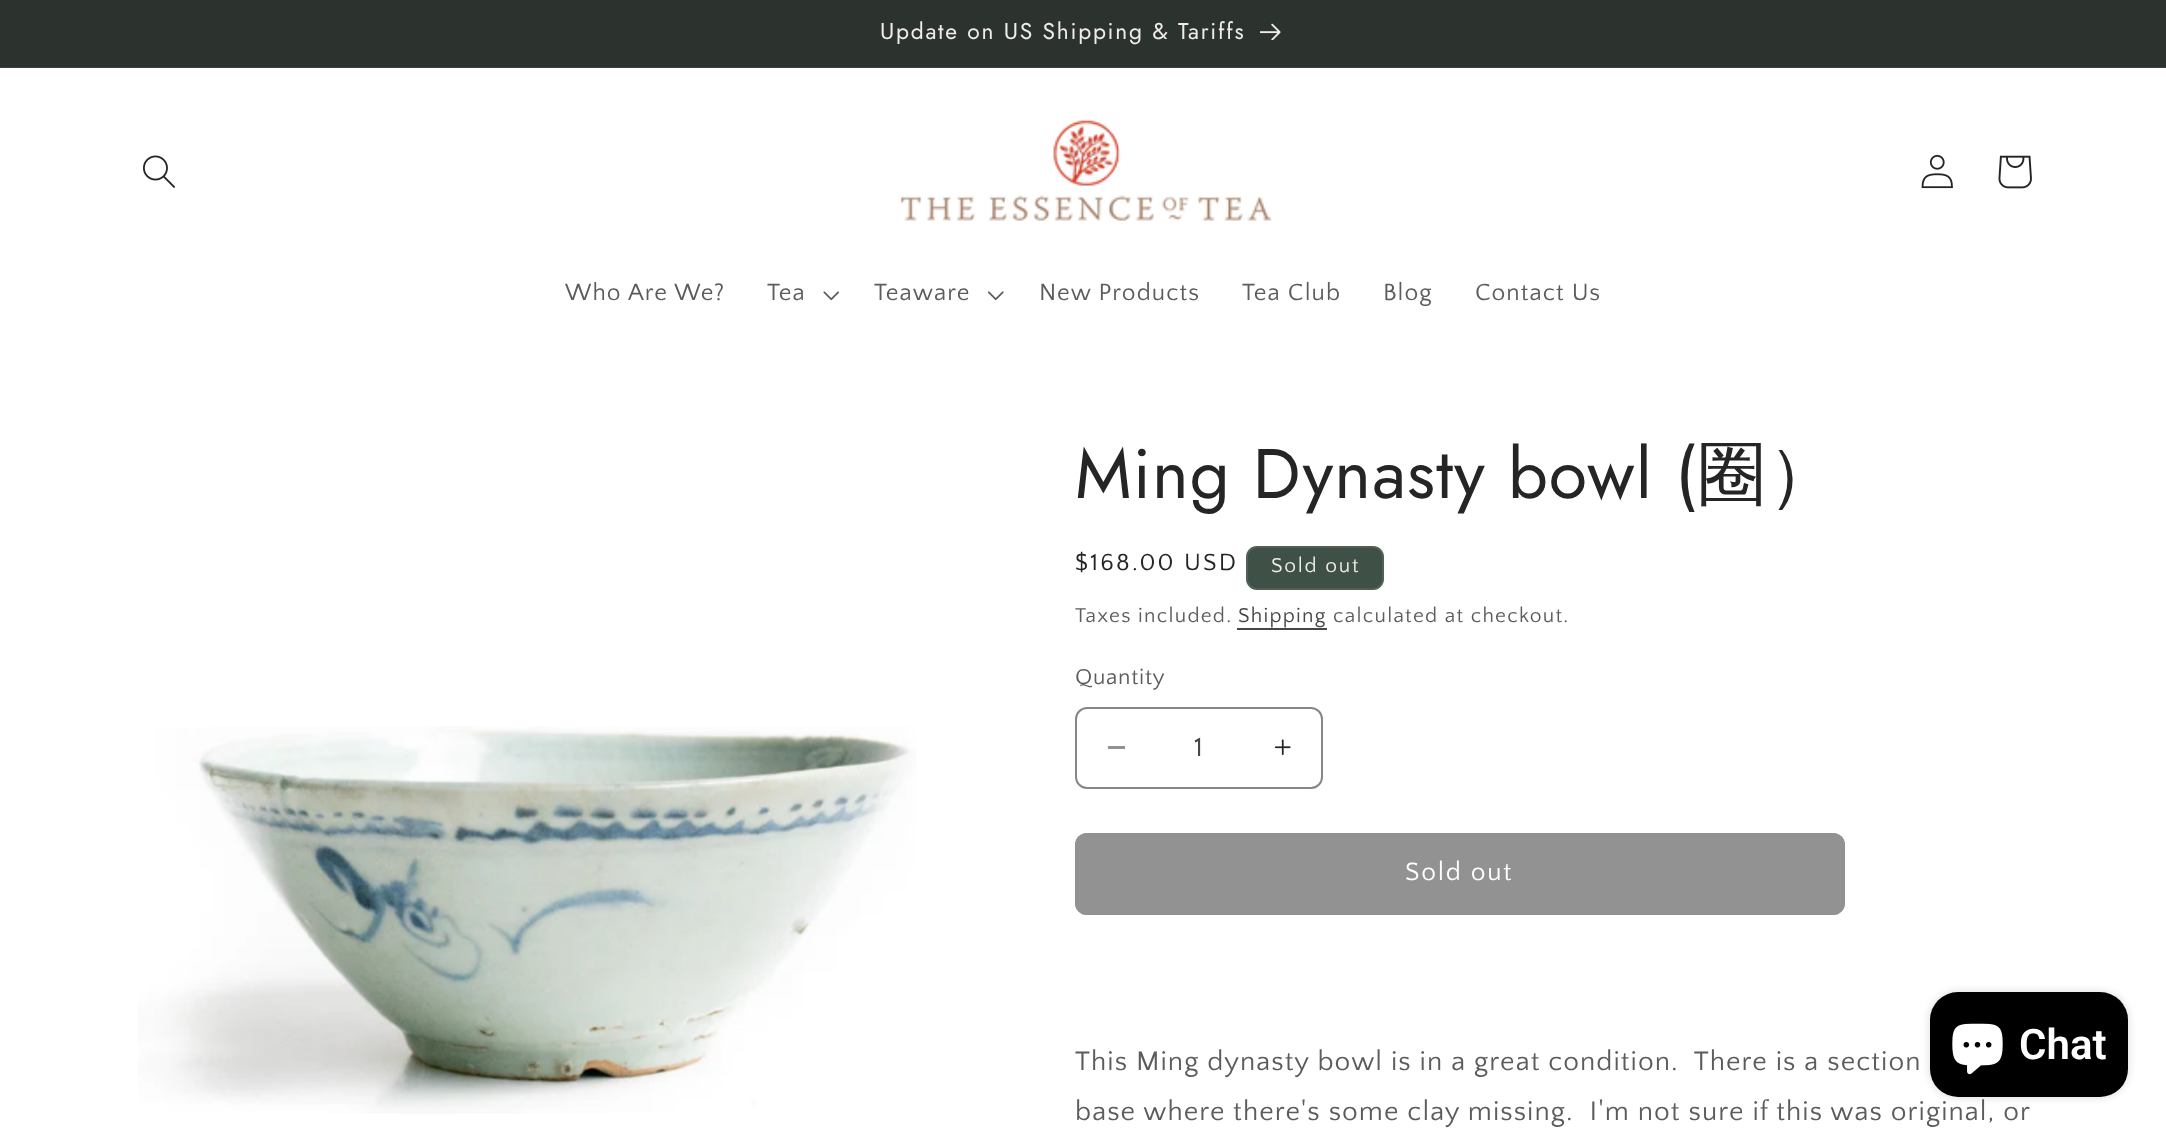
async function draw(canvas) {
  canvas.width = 2166;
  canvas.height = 1134;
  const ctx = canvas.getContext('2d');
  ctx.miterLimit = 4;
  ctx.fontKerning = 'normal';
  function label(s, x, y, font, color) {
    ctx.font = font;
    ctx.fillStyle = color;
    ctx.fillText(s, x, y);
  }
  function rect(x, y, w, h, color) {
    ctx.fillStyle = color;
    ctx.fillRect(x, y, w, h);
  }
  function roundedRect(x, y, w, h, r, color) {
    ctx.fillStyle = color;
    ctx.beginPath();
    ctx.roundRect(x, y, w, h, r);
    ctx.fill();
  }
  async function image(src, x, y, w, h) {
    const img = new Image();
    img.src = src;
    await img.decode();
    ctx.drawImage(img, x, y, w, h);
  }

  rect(0, 0, 2166, 1134, '#fff');
  rect(0, 0, 2166, 67, '#2c332f');
  rect(0, 67, 2166, 1, '#3c423e');
  ctx.letterSpacing = '1.75px';
  label('Update on US Shipping & Tariffs', 880, 39, '22.75px Jost', '#efecec');
  await image('assets/img1.png', 1260, 23, 21, 17);
  await image('assets/img2.png', 143, 155, 32, 33);
  await image('assets/img3.png', 900, 120, 373, 101);
  await image('assets/img4.png', 1921, 154, 32, 35);
  await image('assets/img5.png', 1998, 155, 34, 34);
  ctx.letterSpacing = '1.05px';
  label('Who Are We?', 565, 300, '24.5px Quattrocento Sans', '#5c5c5c');
  label('Tea', 767, 300, '24.5px Quattrocento Sans', '#5c5c5c');
  await image('assets/img6.png', 823, 291, 17, 10);
  label('Teaware', 874, 300, '24.5px Quattrocento Sans', '#5c5c5c');
  await image('assets/img7.png', 987, 291, 17, 10);
  label('New Products', 1039, 300, '24.5px Quattrocento Sans', '#5c5c5c');
  label('Tea Club', 1242, 300, '24.5px Quattrocento Sans', '#5c5c5c');
  label('Blog', 1383, 300, '24.5px Quattrocento Sans', '#5c5c5c');
  label('Contact Us', 1475, 300, '24.5px Quattrocento Sans', '#5c5c5c');
  await image('assets/img8.png', 138, 726, 778, 388);
  label('Ming Dynasty bowl (', 1075, 498, '70px Jost', '#252525');
  label('圈）', 1697, 498, '500 70px WenQuanYi Zen Hei', '#252525');
  ctx.letterSpacing = '2.25px';
  label('$168.00 USD', 1075, 570, '24.5px Quattrocento Sans', '#252525');
  roundedRect(1246, 546, 138, 44, 11, '#3f5147');
  ctx.beginPath();
  ctx.roundRect(1247, 547, 136, 42, 10);
  ctx.strokeStyle = '#efecec1a';
  ctx.lineWidth = 2;
  ctx.stroke();
  ctx.letterSpacing = '1.75px';
  label('Sold out', 1271, 572, '21px Quattrocento Sans', '#efecec');
  ctx.letterSpacing = '1.25px';
  label('Taxes included.', 1075, 622, '21px Quattrocento Sans', '#5c5c5c');
  label('Shipping', 1238, 622, '21px Quattrocento Sans', '#464646');
  rect(1237, 628, 90, 2, '#464646');
  label('calculated at checkout.', 1333, 622, '21px Quattrocento Sans', '#5c5c5c');
  ctx.letterSpacing = '0.75px';
  label('Quantity', 1075, 684, '22.75px Quattrocento Sans', '#5c5c5c');
  rect(1108, 746, 17, 3, '#929292');
  await image('assets/img9.png', 1274, 739, 17, 17);
  ctx.beginPath();
  ctx.roundRect(1076, 708, 246, 80, 11);
  ctx.strokeStyle = '#878787';
  ctx.stroke();
  ctx.letterSpacing = '0px';
  label('1', 1194, 756, '28px Quattrocento Sans', '#464646');
  roundedRect(1075, 833, 770, 82, 12, '#929292');
  ctx.beginPath();
  ctx.roundRect(1076, 834, 768, 80, 11);
  ctx.strokeStyle = '#929292';
  ctx.stroke();
  ctx.letterSpacing = '1.75px';
  label('Sold out', 1405, 880, '26.25px Quattrocento Sans', '#fff');
  ctx.letterSpacing = '1.05px';
  label('This Ming dynasty bowl is in a great condition.  There is a section', 1075, 1070, '28px Quattrocento Sans', '#5c5c5c');
  label('base where there\'s some clay missing.  I\'m not sure if this was original, or', 1075, 1120, '28px Quattrocento Sans', '#5c5c5c');
  ctx.fillStyle = '#00000026';
  ctx.filter = 'blur(4.5px)';
  ctx.beginPath();
  ctx.roundRect(1930, 992, 198, 105, 28);
  ctx.fill();
  ctx.filter = 'none';
  roundedRect(1930, 992, 198, 105, 28, '#000');
  await image('assets/img10.png', 1952, 1023, 51, 52);
  ctx.letterSpacing = '0px';
  label('Chat', 2019, 1059, '600 42px Roboto', '#fff');
}

draw(document.querySelector('canvas'));
